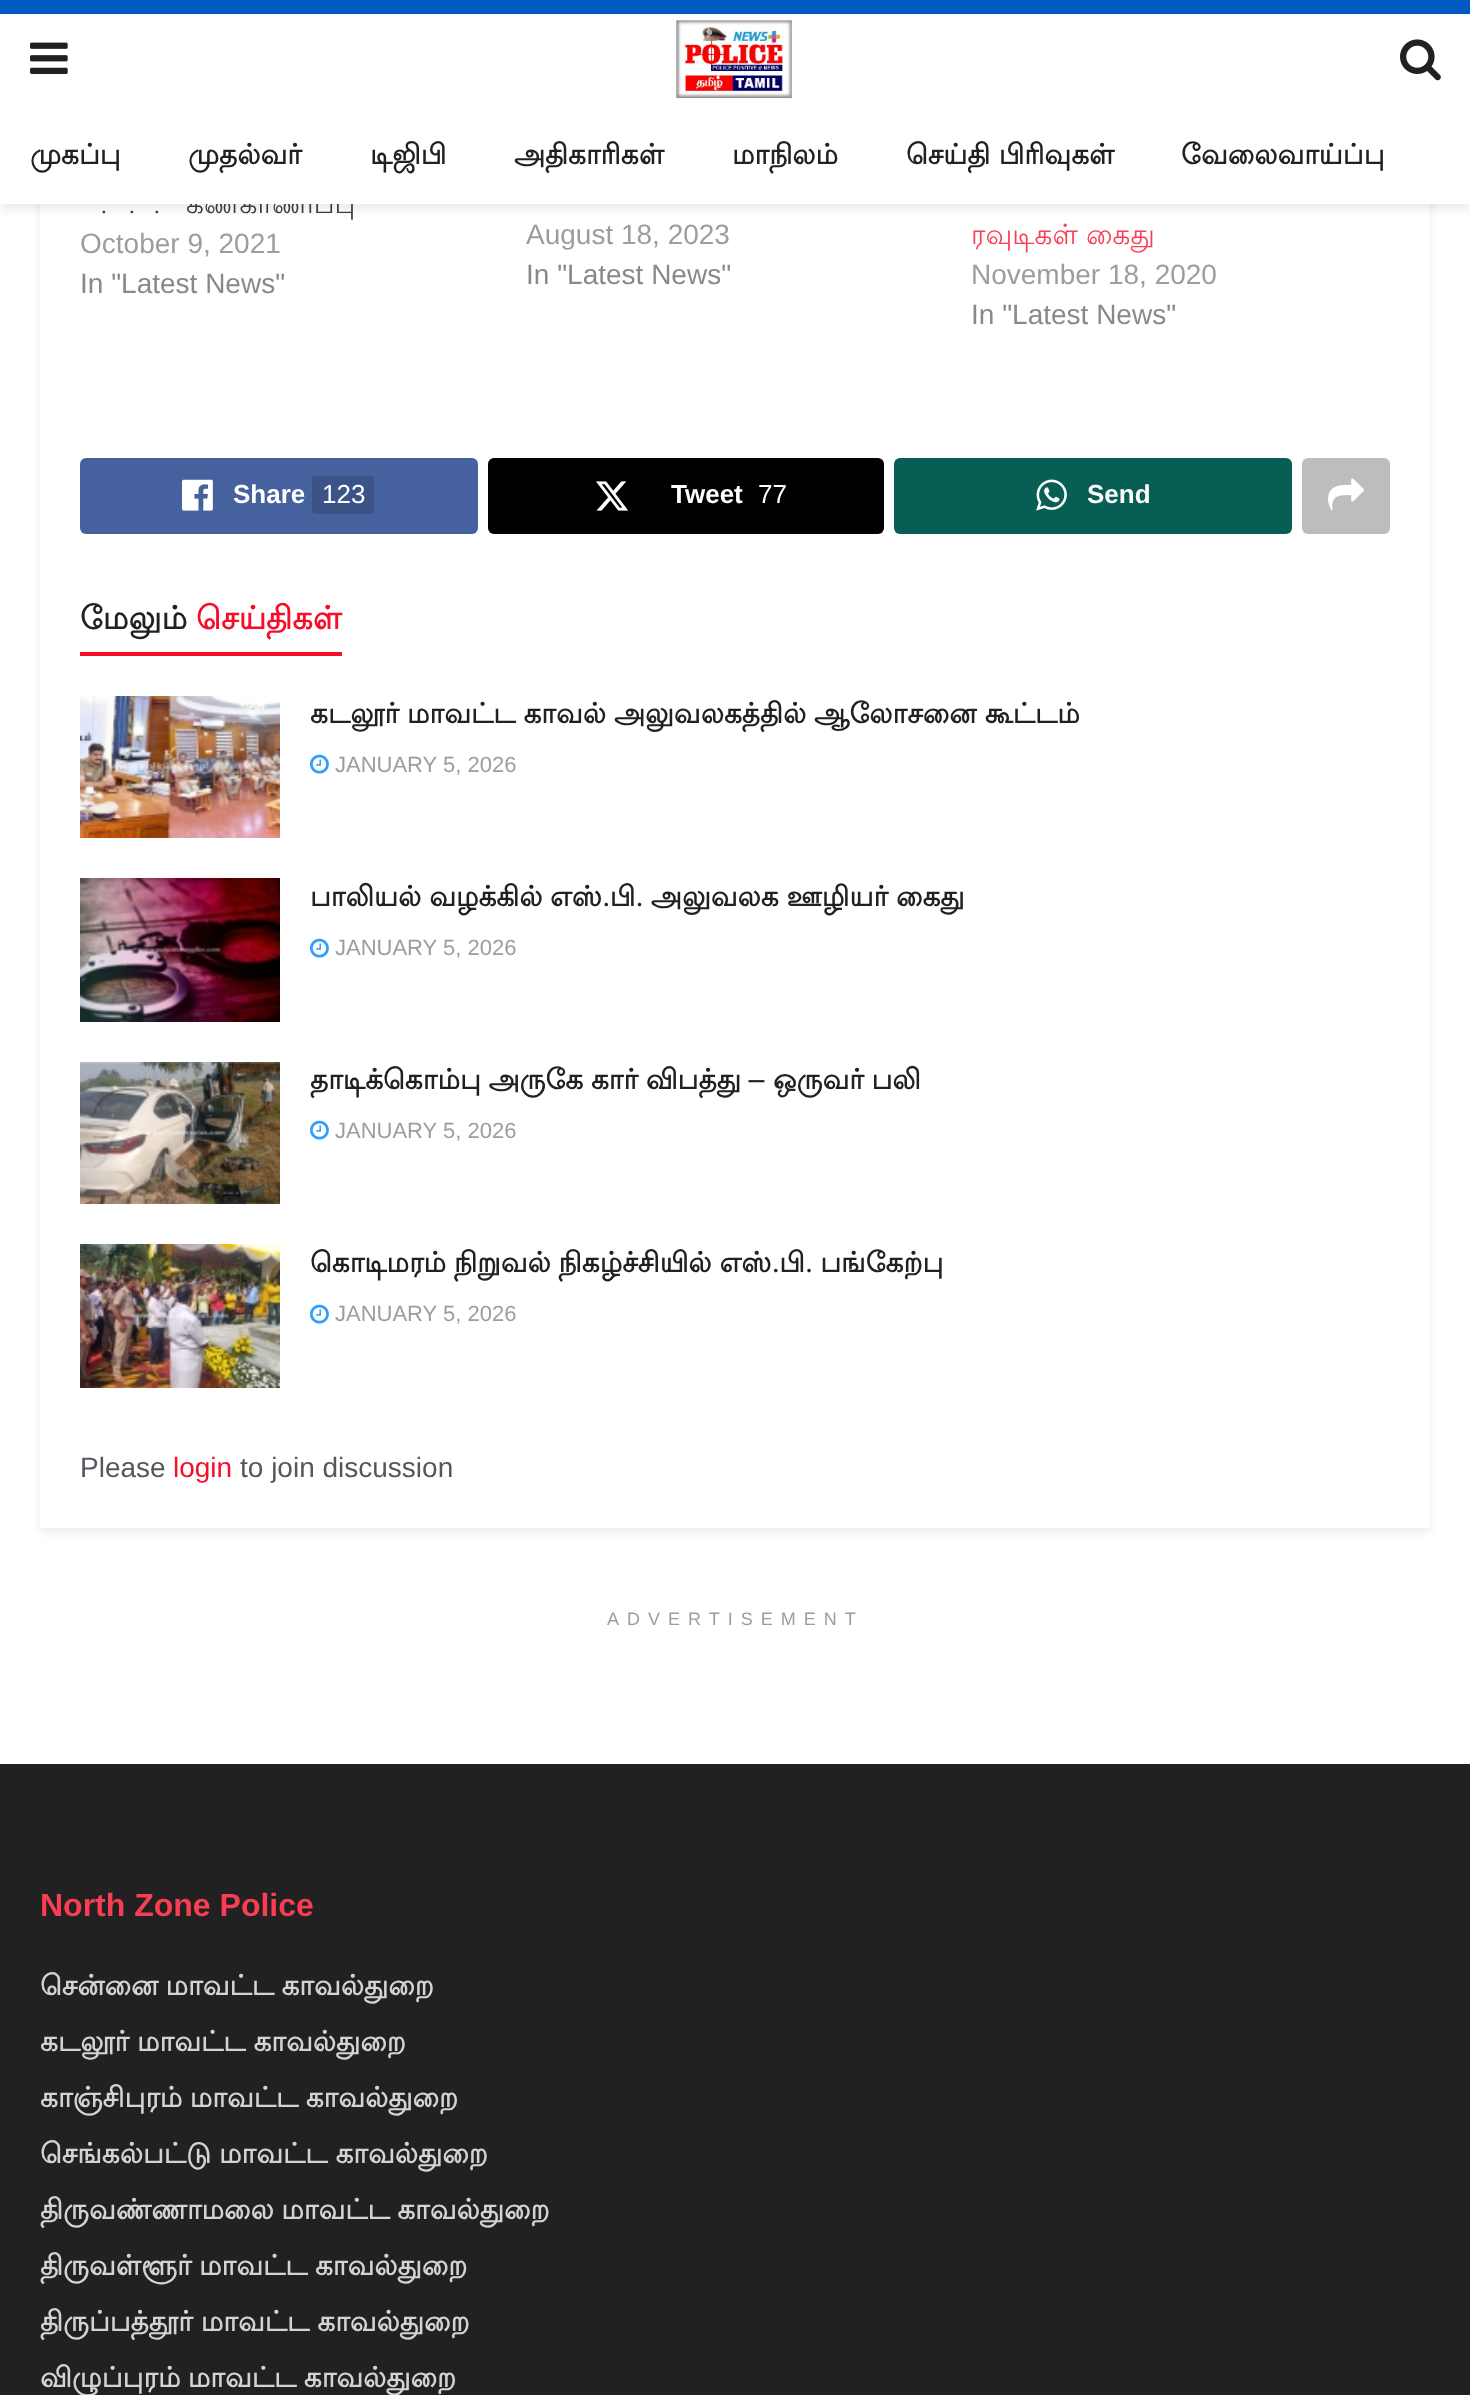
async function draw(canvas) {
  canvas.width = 1470;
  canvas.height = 2395;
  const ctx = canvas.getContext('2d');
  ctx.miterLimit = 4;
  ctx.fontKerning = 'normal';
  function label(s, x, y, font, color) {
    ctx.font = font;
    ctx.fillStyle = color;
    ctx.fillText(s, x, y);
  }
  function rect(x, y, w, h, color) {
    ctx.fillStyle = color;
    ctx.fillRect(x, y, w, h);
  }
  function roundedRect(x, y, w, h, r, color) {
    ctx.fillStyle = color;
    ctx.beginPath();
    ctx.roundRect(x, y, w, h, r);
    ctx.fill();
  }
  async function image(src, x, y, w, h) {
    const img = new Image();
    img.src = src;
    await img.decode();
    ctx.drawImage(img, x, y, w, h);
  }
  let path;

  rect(0, 0, 1470, 2395, '#fff');
  ctx.fillStyle = '#0000001a';
  ctx.filter = 'blur(6px)';
  ctx.beginPath();
  ctx.rect(0, 4, 1470, 204);
  ctx.fill();
  ctx.filter = 'none';
  ctx.save();
  path = new Path2D('M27 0H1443V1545H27ZM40-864H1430V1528H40Z');
  ctx.clip(path, 'evenodd');
  ctx.fillStyle = '#00000014';
  ctx.filter = 'blur(4px)';
  ctx.beginPath();
  ctx.rect(40, -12, 1390, 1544);
  ctx.fill();
  ctx.filter = 'none';
  ctx.restore();
  label('கண்காணிப்பு', 186, 213, '28px Lohit Tamil', '#3b3b3b');
  rect(0, 14, 1470, 190, '#fff');
  rect(0, 0, 1470, 14, '#005ac1');
  await image('assets/img1.png', 30, 42, 38, 32);
  await image('assets/img2.png', 676, 20, 116, 79);
  await image('assets/img3.png', 1400, 39, 41, 42);
  label('முகப்பு', 30, 164, 'bold 28px Lohit Tamil', '#212121');
  label('முதல்வர்', 188, 164, 'bold 28px Lohit Tamil', '#212121');
  label('டிஜிபி', 370, 164, 'bold 28px Lohit Tamil', '#212121');
  label('அதிகாரிகள்', 514, 164, 'bold 28px Lohit Tamil', '#212121');
  label('மாநிலம்', 732, 164, 'bold 28px Lohit Tamil', '#212121');
  label('செய்தி பிரிவுகள்', 906, 164, 'bold 28px Lohit Tamil', '#212121');
  label('வேலைவாய்ப்பு', 1181, 164, 'bold 28px Lohit Tamil', '#212121');
  label('.', 100, 213, '28px Lohit Tamil', '#3b3b3b');
  label('.', 128, 213, '28px Lohit Tamil', '#3b3b3b');
  label('.', 153, 213, '28px Lohit Tamil', '#3b3b3b');
  label('October 9, 2021', 80, 253, '28px Liberation Sans', '#9d9d9d');
  label('In "Latest News"', 80, 293, '28px Liberation Sans', '#898989');
  label('August 18, 2023', 526, 244, '28px Liberation Sans', '#9d9d9d');
  label('In "Latest News"', 526, 284, '28px Liberation Sans', '#898989');
  label('ரவுடிகள் கைது', 971, 244, '28px Lohit Tamil', '#f93d53');
  label('November 18, 2020', 971, 284, '28px Liberation Sans', '#9d9d9d');
  label('In "Latest News"', 971, 324, '28px Liberation Sans', '#898989');
  roundedRect(80, 458, 398, 76, 6, '#45629f');
  await image('assets/img4.png', 182, 479, 31, 32);
  label('Share', 233, 503, 'bold 26px Liberation Sans', '#fff');
  roundedRect(312, 476, 62, 38, 4, '#3b5387');
  label('123', 322, 503, '26px Liberation Sans', '#fff');
  roundedRect(488, 458, 396, 76, 6, '#000');
  await image('assets/img5.png', 596, 481, 33, 30);
  label('Tweet', 671, 503, 'bold 26px Liberation Sans', '#fff');
  label('77', 758, 503, '26px Liberation Sans', '#fff');
  roundedRect(894, 458, 398, 76, 6, '#075e54');
  await image('assets/img6.png', 1036, 479, 31, 32);
  label('Send', 1087, 503, 'bold 26px Liberation Sans', '#fff');
  roundedRect(1302, 458, 88, 76, 6, '#bdbdbd');
  await image('assets/img7.png', 1328, 478, 36, 33);
  rect(80, 652, 262, 4, '#f70d28');
  label('மேலும்', 80, 629, 'bold 32px Lohit Tamil', '#212121');
  label('செய்திகள்', 196, 629, 'bold 32px Lohit Tamil', '#f70d28');
  await image('assets/img8.png', 80, 696, 200, 142);
  ctx.wordSpacing = '-0.5px';
  label('கடலூர் மாவட்ட காவல் அலுவலகத்தில்', 310, 723, 'bold 28px Lohit Tamil', '#212121');
  ctx.wordSpacing = '0px';
  label('ஆலோசனை கூட்டம்', 814, 723, 'bold 28px Lohit Tamil', '#212121');
  await image('assets/img9.png', 310, 754, 19, 20);
  label('JANUARY 5, 2026', 335, 772, '22px Liberation Sans', '#9d9d9d');
  await image('assets/img10.png', 80, 878, 200, 144);
  ctx.wordSpacing = '-0.5px';
  label('பாலியல் வழக்கில்', 310, 906, 'bold 28px Lohit Tamil', '#212121');
  label('எஸ்.பி. அலுவலக ஊழியர் கைது', 550, 906, 'bold 28px Lohit Tamil', '#212121');
  await image('assets/img9.png', 310, 938, 19, 20);
  ctx.wordSpacing = '0px';
  label('JANUARY 5, 2026', 335, 955, '22px Liberation Sans', '#9d9d9d');
  await image('assets/img11.png', 80, 1062, 200, 142);
  ctx.wordSpacing = '-0.75px';
  label('தாடிக்கொம்பு அருகே கார் விபத்து – ஒருவர் பலி', 310, 1089, 'bold 28px Lohit Tamil', '#212121');
  await image('assets/img9.png', 310, 1120, 19, 20);
  ctx.wordSpacing = '0px';
  label('JANUARY 5, 2026', 335, 1138, '22px Liberation Sans', '#9d9d9d');
  await image('assets/img12.png', 80, 1244, 200, 144);
  ctx.wordSpacing = '-0.5px';
  label('கொடிமரம் நிறுவல் நிகழ்ச்சியில் எஸ்.பி. பங்கேற்பு', 310, 1272, 'bold 28px Lohit Tamil', '#212121');
  await image('assets/img9.png', 310, 1304, 19, 20);
  ctx.wordSpacing = '0px';
  label('JANUARY 5, 2026', 335, 1321, '22px Liberation Sans', '#9d9d9d');
  label('Please', 80, 1477, '28px Liberation Sans', '#53585c');
  label('login', 173, 1477, '28px Liberation Sans', '#f70d28');
  label('to join discussion', 240, 1477, '28px Liberation Sans', '#53585c');
  ctx.letterSpacing = '8px';
  label('ADVERTISEMENT', 607, 1625, '18px Liberation Sans', '#9d9d9d');
  rect(0, 1764, 1470, 631, '#212121');
  ctx.letterSpacing = '0px';
  label('North Zone Police', 40, 1916, 'bold 32px Liberation Sans', '#f93d53');
  ctx.wordSpacing = '-1px';
  label('சென்னை மாவட்ட காவல்துறை', 40, 1995, 'bold 28px Lohit Tamil', '#d3d3d3');
  ctx.wordSpacing = '-0.5px';
  label('கடலூர் மாவட்ட காவல்துறை', 40, 2051, 'bold 28px Lohit Tamil', '#d3d3d3');
  ctx.wordSpacing = '-1px';
  label('காஞ்சிபுரம் மாவட்ட காவல்துறை', 40, 2107, 'bold 28px Lohit Tamil', '#d3d3d3');
  ctx.wordSpacing = '-0.5px';
  label('செங்கல்பட்டு மாவட்ட காவல்துறை', 40, 2163, 'bold 28px Lohit Tamil', '#d3d3d3');
  ctx.wordSpacing = '-1px';
  label('திருவண்ணாமலை மாவட்ட காவல்துறை', 40, 2219, 'bold 28px Lohit Tamil', '#d3d3d3');
  label('திருவள்ளூர் மாவட்ட காவல்துறை', 40, 2275, 'bold 28px Lohit Tamil', '#d3d3d3');
  ctx.wordSpacing = '-0.5px';
  label('திருப்பத்தூர் மாவட்ட காவல்துறை', 40, 2331, 'bold 28px Lohit Tamil', '#d3d3d3');
  ctx.wordSpacing = '-1px';
  label('விழுப்புரம் மாவட்ட காவல்துறை', 40, 2387, 'bold 28px Lohit Tamil', '#d3d3d3');
}

draw(document.querySelector('canvas'));
